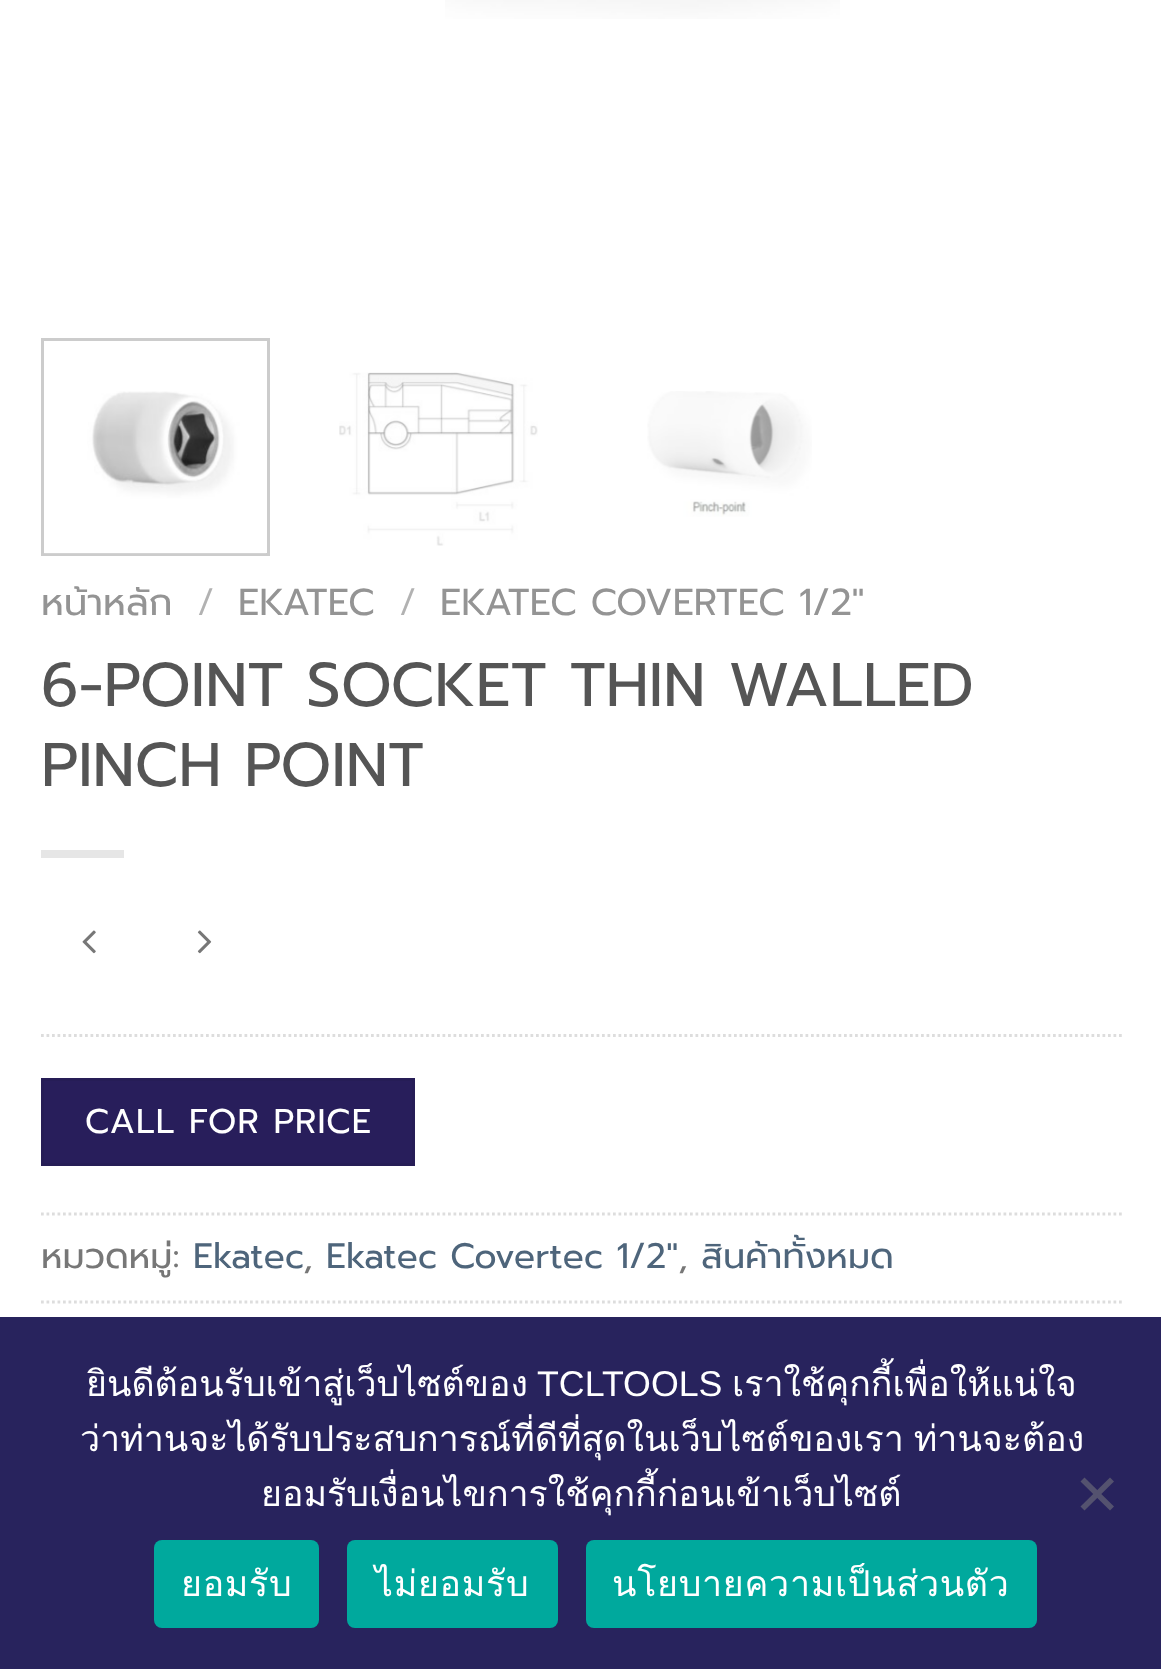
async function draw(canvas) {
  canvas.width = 1161;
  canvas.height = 1669;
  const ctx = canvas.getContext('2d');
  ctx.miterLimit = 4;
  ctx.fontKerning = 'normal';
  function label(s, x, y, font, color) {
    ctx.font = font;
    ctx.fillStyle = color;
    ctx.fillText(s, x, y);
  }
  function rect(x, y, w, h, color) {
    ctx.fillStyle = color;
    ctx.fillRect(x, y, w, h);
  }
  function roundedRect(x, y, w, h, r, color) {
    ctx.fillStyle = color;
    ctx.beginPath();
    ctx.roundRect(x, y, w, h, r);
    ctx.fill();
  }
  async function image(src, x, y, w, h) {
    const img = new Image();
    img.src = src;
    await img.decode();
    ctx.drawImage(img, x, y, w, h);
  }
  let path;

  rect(0, 0, 1161, 1669, '#fff');
  await image('assets/img1.png', 445, 0, 395, 19);
  ctx.strokeStyle = '#ccc';
  ctx.lineWidth = 3;
  ctx.strokeRect(42.5, 339.5, 226, 215);
  await image('assets/img2.png', 44, 391, 222, 163);
  await image('assets/img3.png', 339, 372, 199, 174);
  await image('assets/img4.png', 647, 391, 165, 126);
  label('หน้าหลัก', 41, 615, '37.4px Prompt', '#949494');
  label('/', 197, 615, '300 37.4px Prompt', '#b2b2b2');
  label('EKATEC', 238, 615, '37.4px Prompt', '#949494');
  label('/', 399, 615, '300 37.4px Prompt', '#b2b2b2');
  label('EKATEC COVERTEC 1/2"', 440, 615, '37.4px Prompt', '#949494');
  label('6-POINT SOCKET THIN WALLED', 41, 706, '61.6px Prompt', '#555');
  label('PINCH POINT', 41, 786, '61.6px Prompt', '#555');
  rect(41, 850, 83, 8, '#e6e6e6');
  await image('assets/img5.png', 82, 930, 14, 24);
  await image('assets/img6.png', 197, 930, 15, 24);
  path = new Path2D('M41 1035.5H1122');
  ctx.strokeStyle = '#ddd';
  ctx.lineWidth = 2.8;
  ctx.setLineDash([2.75, 2.75]);
  ctx.stroke(path);
  ctx.fillStyle = '#281e5b';
  ctx.beginPath();
  ctx.rect(42.5, 1079.5, 371, 85);
  ctx.fill();
  ctx.strokeStyle = '#261d56';
  ctx.lineWidth = 3;
  ctx.setLineDash([]);
  ctx.stroke();
  ctx.letterSpacing = '1px';
  label('CALL FOR PRICE', 85, 1133, '34.25px Prompt', '#fff');
  path = new Path2D('M41 1214H1122');
  ctx.strokeStyle = '#ddd';
  ctx.lineWidth = 2.8;
  ctx.setLineDash([2.75, 2.75]);
  ctx.stroke(path);
  ctx.letterSpacing = '0px';
  label('หมวดหมู่:', 41, 1268, '35.25px Prompt', '#777');
  label('Ekatec', 193, 1268, '35.25px Prompt', '#4e657b');
  label('Ekatec Covertec 1/2"', 326, 1268, '35.25px Prompt', '#4e657b');
  label('สินค้าทั้งหมด', 701, 1268, '35.25px Prompt', '#4e657b');
  label(',', 303, 1268, '35.25px Prompt', '#777');
  label(',', 678, 1268, '35.25px Prompt', '#777');
  path = new Path2D('M41 1302H1122');
  ctx.stroke(path);
  rect(0, 1317, 1161, 352, '#28235d');
  label('ยินดีต้อนรับเข้าสู่เว็บไซต์ของ', 86, 1396, '35.75px Loma', '#fff');
  label('TCLTOOLS', 537, 1396, '35.75px Liberation Sans', '#fff');
  label('เราใช้คุกกี้เพื่อให้แน่ใจ', 732, 1396, '35.75px Loma', '#fff');
  ctx.wordSpacing = '-2px';
  label('ว่าท่านจะได้รับประสบการณ์ที่ดีที่สุดในเว็บไซต์ของเรา ท่านจะต้อง', 80, 1451, '35.75px Loma', '#fff');
  ctx.wordSpacing = '0px';
  label('ยอมรับเงื่อนไขการใช้คุกกี้ก่อนเข้าเว็บไซต์', 261, 1506, '35.75px Loma', '#fff');
  ctx.fillStyle = '#54526f';
  path = new Path2D('M1110 1477.5L1114 1481.5L1084.5 1510.5L1080.5 1506.5Z');
  ctx.fill(path);
  path = new Path2D('M1080.5 1481.5L1084.5 1477.5L1114 1506.5L1110 1510.5Z');
  ctx.fill(path);
  roundedRect(154, 1540, 165, 88, 8, '#00a99d');
  ctx.letterSpacing = '0.7px';
  label('ยอมรับ', 181, 1596, '35.75px Loma', '#fff');
  roundedRect(347, 1540, 211, 88, 8, '#00a99d');
  label('ไม่ยอมรับ', 375, 1596, '35.75px Loma', '#fff');
  roundedRect(586, 1540, 451, 88, 8, '#00a99d');
  label('นโยบายความเป็นส่วนตัว', 612, 1596, '35.75px Loma', '#fff');
}

draw(document.querySelector('canvas'));
